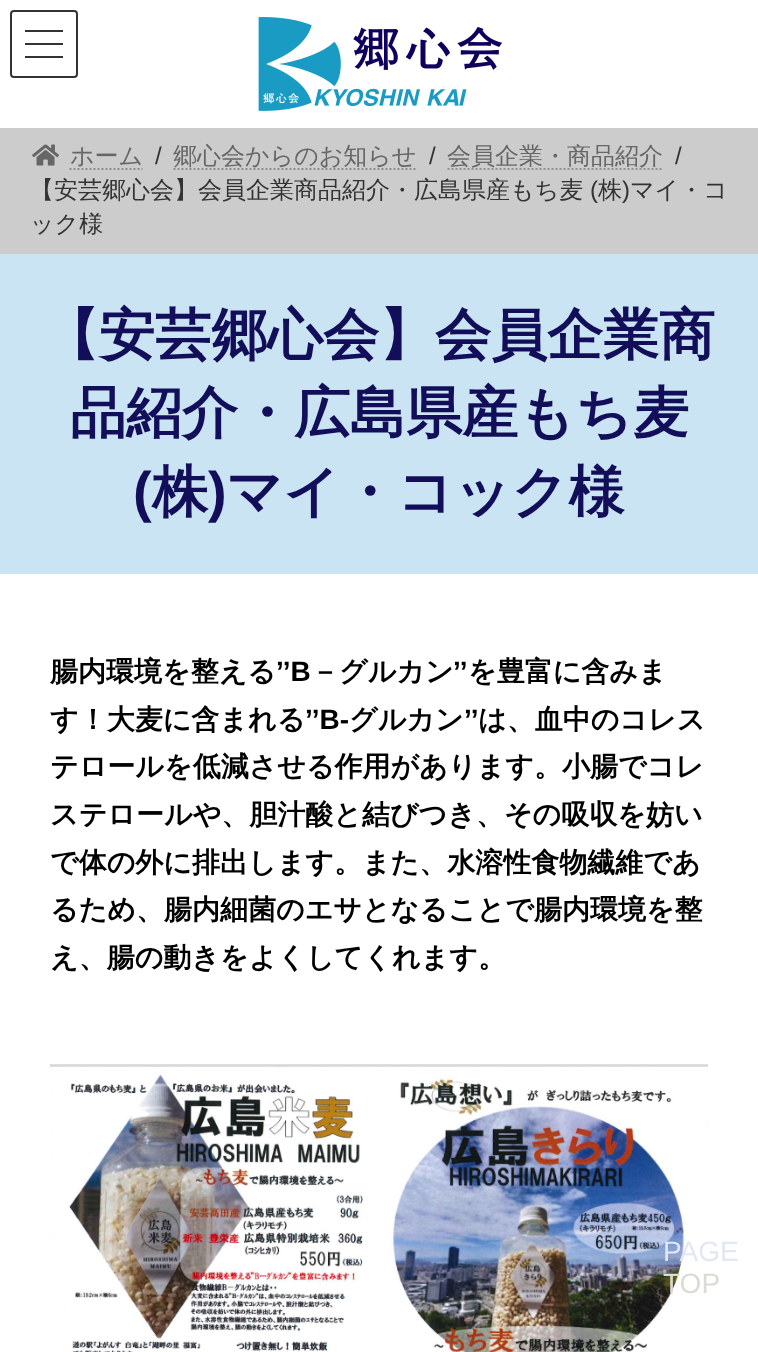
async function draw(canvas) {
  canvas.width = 758;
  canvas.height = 1352;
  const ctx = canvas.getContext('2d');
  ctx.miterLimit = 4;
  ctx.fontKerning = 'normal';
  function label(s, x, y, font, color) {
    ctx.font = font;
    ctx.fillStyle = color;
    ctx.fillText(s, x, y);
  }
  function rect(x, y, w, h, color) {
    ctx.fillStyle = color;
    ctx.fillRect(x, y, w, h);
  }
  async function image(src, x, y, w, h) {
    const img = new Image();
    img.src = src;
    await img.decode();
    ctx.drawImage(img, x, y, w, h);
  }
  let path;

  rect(0, 0, 758, 1352, '#fff');
  rect(25, 30, 38, 2, '#333');
  rect(25, 43, 38, 2, '#333');
  rect(25, 56, 38, 2, '#333');
  ctx.beginPath();
  ctx.roundRect(11, 11, 66, 66, 3);
  ctx.strokeStyle = '#333';
  ctx.lineWidth = 2;
  ctx.stroke();
  await image('assets/img1.png', 258, 17, 244, 94);
  rect(0, 128, 758, 126, '#ccc');
  await image('assets/img2.png', 32, 144, 27, 22);
  label('ホーム', 70, 164, '500 24px WenQuanYi Zen Hei', '#666');
  path = new Path2D('M69.5 169H142.5');
  ctx.strokeStyle = '#8f8f8f';
  ctx.setLineDash([2, 2]);
  ctx.stroke(path);
  label('/', 155, 164, '24px Liberation Sans', '#333');
  label('郷心会からのお知らせ', 173, 164, '500 24px WenQuanYi Zen Hei', '#666');
  path = new Path2D('M173.5 169H417');
  ctx.stroke(path);
  label('/', 429, 164, '24px Liberation Sans', '#333');
  label('会員企業・商品紹介', 447, 164, '500 24px WenQuanYi Zen Hei', '#666');
  path = new Path2D('M447.5 169H663.5');
  ctx.stroke(path);
  label('/', 675, 164, '24px Liberation Sans', '#333');
  label('【安芸郷心会】会員企業商品紹介・広島県産もち麦', 30, 198, '500 24px WenQuanYi Zen Hei', '#333');
  label('(', 590, 198, '24px Liberation Sans', '#333');
  label('株', 598, 198, '500 24px WenQuanYi Zen Hei', '#333');
  label(')', 622, 198, '24px Liberation Sans', '#333');
  label('マイ・コ', 630, 198, '500 24px WenQuanYi Zen Hei', '#333');
  label('ック様', 30, 232, '500 24px WenQuanYi Zen Hei', '#333');
  rect(0, 254, 758, 320, '#cae4f3');
  label('【安芸郷心会】会員企業商', 43, 354, 'bold 56px WenQuanYi Zen Hei', '#120e59');
  label('品紹介・広島県産もち麦', 70, 432, 'bold 56px WenQuanYi Zen Hei', '#120e59');
  label('(', 133, 511, 'bold 56px Liberation Sans', '#120e59');
  label('株', 152, 511, 'bold 56px WenQuanYi Zen Hei', '#120e59');
  label(')', 208, 511, 'bold 56px Liberation Sans', '#120e59');
  label('マイ・コック様', 226, 511, 'bold 56px WenQuanYi Zen Hei', '#120e59');
  label('腸内環境を整える', 50, 681, 'bold 28px WenQuanYi Zen Hei', '#000');
  label('’’B', 276, 681, 'bold 28px Liberation Sans', '#000');
  label('－グルカン', 311, 681, 'bold 28px WenQuanYi Zen Hei', '#000');
  label('’’', 453, 681, 'bold 28px Liberation Sans', '#000');
  label('を豊富に含みま', 468, 681, 'bold 28px WenQuanYi Zen Hei', '#000');
  label('す！大麦に含まれる', 50, 729, 'bold 28px WenQuanYi Zen Hei', '#000');
  label('’’B-', 305, 729, 'bold 28px Liberation Sans', '#000');
  label('グルカン', 349, 729, 'bold 28px WenQuanYi Zen Hei', '#000');
  label('’’', 464, 729, 'bold 28px Liberation Sans', '#000');
  label('は、血中のコレス', 478, 729, 'bold 28px WenQuanYi Zen Hei', '#000');
  label('テロールを低減させる作用があります。小腸でコレ', 50, 776, 'bold 28px WenQuanYi Zen Hei', '#000');
  label('ステロールや、胆汁酸と結びつき、その吸収を妨い', 50, 824, 'bold 28px WenQuanYi Zen Hei', '#000');
  label('で体の外に排出します。また、水溶性食物繊維であ', 50, 872, 'bold 28px WenQuanYi Zen Hei', '#000');
  label('るため、腸内細菌のエサとなることで腸内環境を整', 50, 919, 'bold 28px WenQuanYi Zen Hei', '#000');
  label('え、腸の動きをよくしてくれます。', 50, 967, 'bold 28px WenQuanYi Zen Hei', '#000');
  await image('assets/img3.png', 50, 1064, 658, 288);
  label('PAGE', 663, 1261, '28px Liberation Sans', '#e2e8f3');
  label('TOP', 663, 1293, '28px Liberation Sans', '#dbdbd5');
}

draw(document.querySelector('canvas'));
